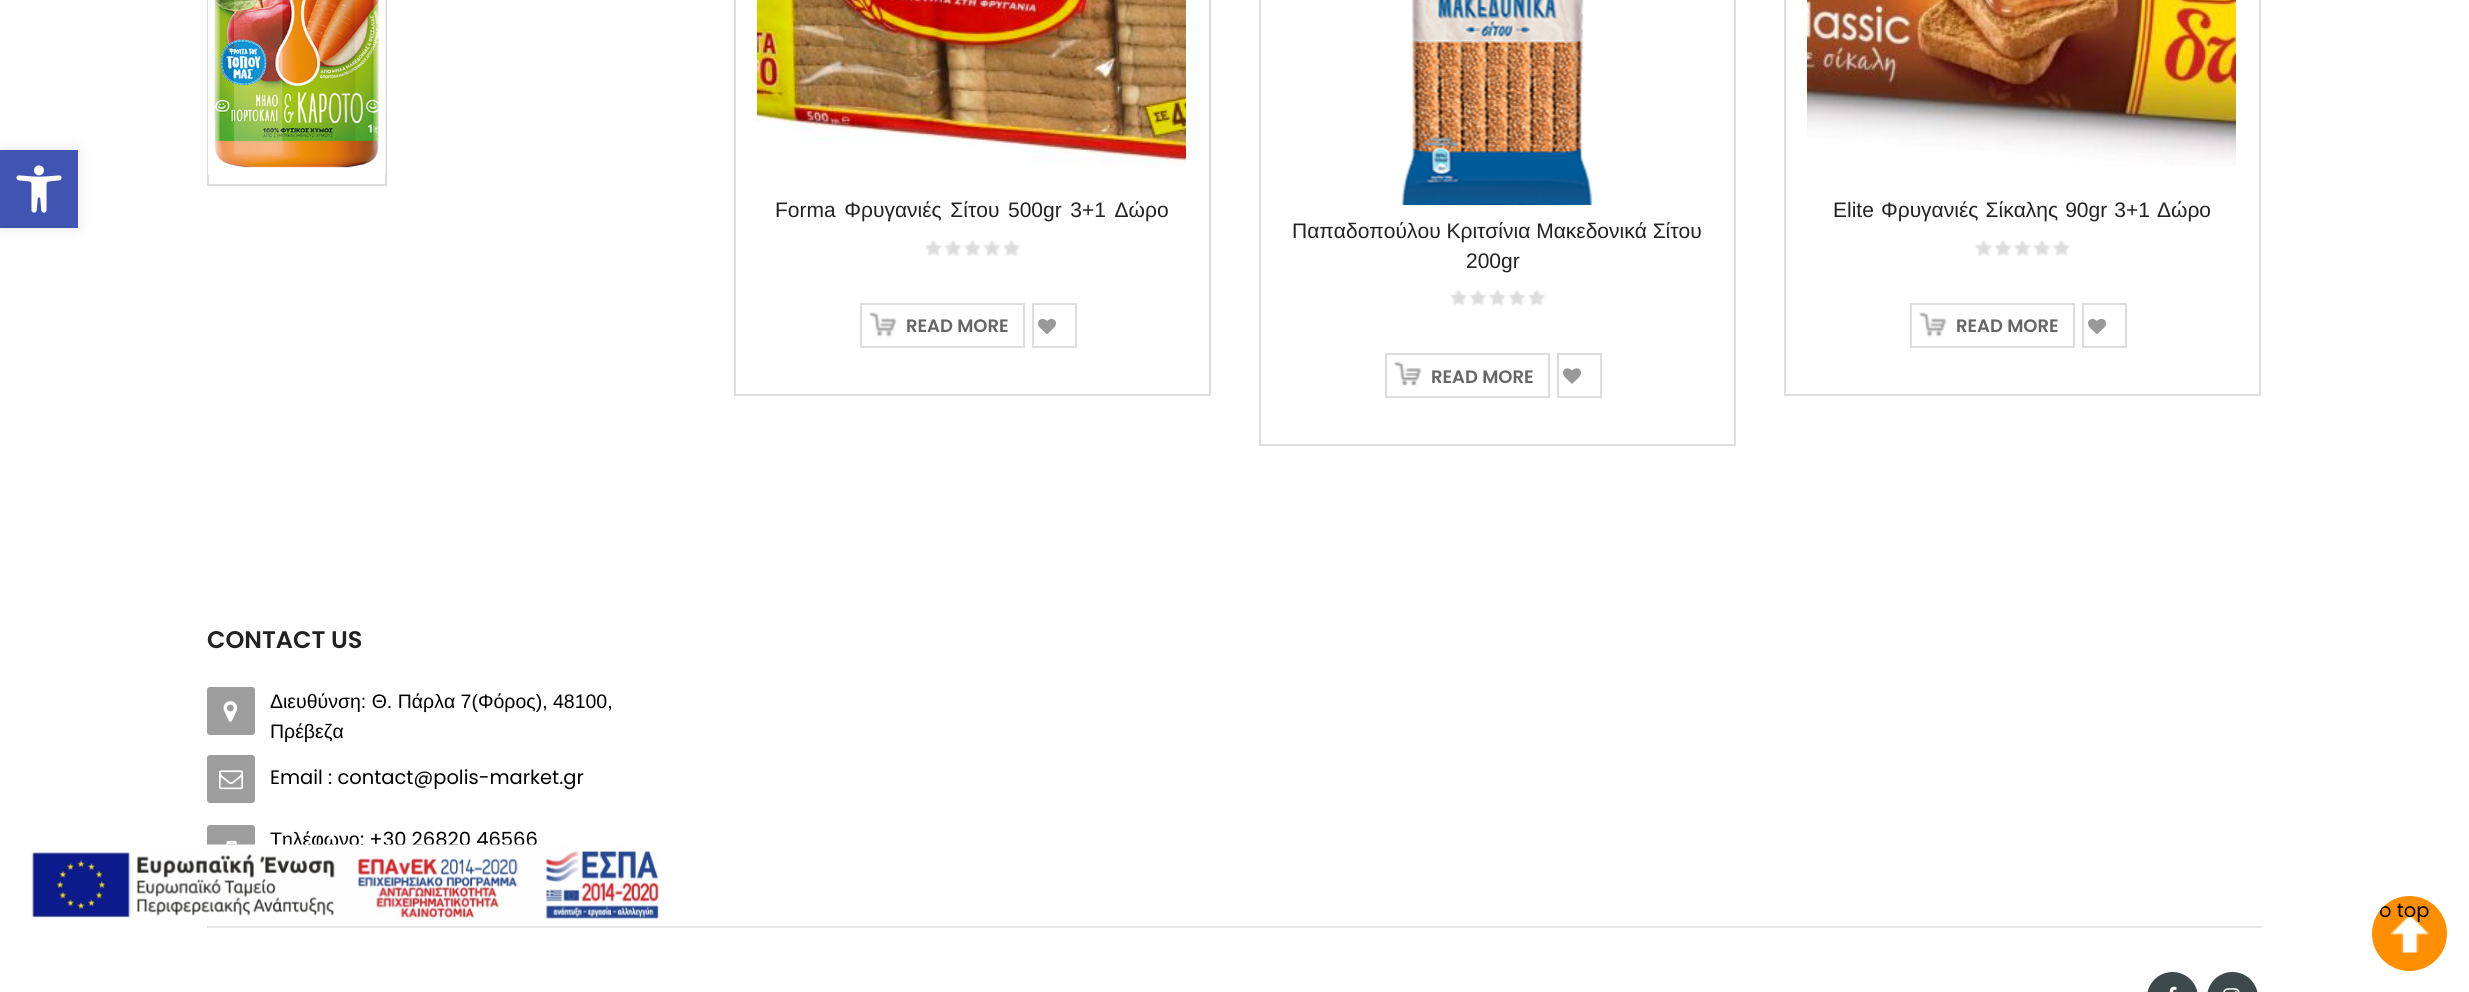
#include <cairo/cairo.h>
#include <math.h>
#include <stddef.h>

static cairo_t *cr;

static void rgb(unsigned color)
{
	cairo_set_source_rgb(cr, (color >> 16) / 255.0, (color >> 8 & 255) / 255.0, (color & 255) / 255.0);
}

static void tracked(double x, double y, const char *s, double letter, double word)
{
	cairo_move_to(cr, x, y);
	while (*s) {
		char ch[5] = {0};
		int n = 0;
		do ch[n++] = *s++; while ((*s & 0xC0) == 0x80);
		cairo_show_text(cr, ch);
		cairo_rel_move_to(cr, letter + word * (*ch == ' '), 0);
	}
}

static void rrect(double x, double y, double w, double h, double r)
{
	cairo_new_sub_path(cr);
	cairo_arc(cr, x + w - r, y + h - r, r, 0, M_PI / 2);
	cairo_arc(cr, x + r, y + h - r, r, M_PI / 2, M_PI);
	cairo_arc(cr, x + r, y + r, r, M_PI, 1.5 * M_PI);
	cairo_arc(cr, x + w - r, y + r, r, 1.5 * M_PI, 2 * M_PI);
	cairo_close_path(cr);
}

static void soft_shadow(double x, double y, double w, double h, double r, double blur, double alpha)
{
	cairo_push_group_with_content(cr, CAIRO_CONTENT_ALPHA);
	cairo_set_operator(cr, CAIRO_OPERATOR_SOURCE);
	for (int i = 15; i >= -15 && fmin(w, h) + blur * i / 3 > 0; i -= 2) {
		double e = blur * i / 6;
		cairo_set_source_rgba(cr, 0, 0, 0, alpha * erfc((i - 1) / 8.5) / 2);
		rrect(x - e, y - e, w + 2 * e, h + 2 * e, fmax(0, fmin(r + e + blur * .6, fmin(w, h) / 2 + e)));
		cairo_fill(cr);
	}
	cairo_pattern_t *soft = cairo_pop_group(cr);
	cairo_mask(cr, soft);
	cairo_pattern_destroy(soft);
}

static void image(const char *path, double x, double y, double w, double h)
{
	cairo_surface_t *image = cairo_image_surface_create_from_png(path);
	cairo_save(cr);
	cairo_set_source_surface(cr, image, x, y);
	cairo_rectangle(cr, x, y, w, h);
	cairo_fill(cr);
	cairo_restore(cr);
	cairo_surface_destroy(image);
}

int main(void) {
	cairo_surface_t *surface = cairo_image_surface_create(CAIRO_FORMAT_RGB24, 2469, 992);
	cr = cairo_create(surface);
	cairo_font_options_t *options = cairo_font_options_create();
	cairo_font_options_set_hint_metrics(options, CAIRO_HINT_METRICS_OFF);
	cairo_font_options_set_hint_style(options, CAIRO_HINT_STYLE_NONE);
	cairo_set_font_options(cr, options);
	cairo_set_miter_limit(cr, 4);
	rgb(0xffffff);
	cairo_paint(cr);
	rgb(0x000000);
	soft_shadow(0, 150, 78, 78, 0, 7.5, 0.1);
	rgb(0x4054b2);
	cairo_rectangle(cr, 0, 150, 78, 78);
	cairo_fill(cr);
	image("img/1.png", 16, 165, 46, 48);
	cairo_rectangle(cr, 208, -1, 178, 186);
	rgb(0xdddddd);
	cairo_stroke(cr);
	image("img/2.png", 208, 0, 178, 175);
	cairo_rectangle(cr, 735, -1, 475, 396);
	cairo_stroke(cr);
	image("img/3.png", 757, 0, 429, 166);
	image("img/4.png", 925, 240, 95, 17);
	cairo_rectangle(cr, 861, 304, 163, 43);
	cairo_stroke(cr);
	image("img/5.png", 869, 312, 28, 25);
	cairo_rectangle(cr, 1033, 304, 43, 43);
	cairo_stroke(cr);
	image("img/6.png", 1038, 318, 18, 17);
	cairo_rectangle(cr, 1260, -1, 475, 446);
	cairo_stroke(cr);
	image("img/7.png", 1401, 0, 192, 205);
	image("img/8.png", 1450, 289, 96, 17);
	cairo_rectangle(cr, 1386, 354, 163, 43);
	cairo_stroke(cr);
	image("img/9.png", 1394, 362, 28, 24);
	cairo_rectangle(cr, 1558, 354, 43, 43);
	cairo_stroke(cr);
	image("img/10.png", 1563, 368, 18, 16);
	cairo_rectangle(cr, 1785, -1, 475, 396);
	cairo_stroke(cr);
	image("img/11.png", 1807, 0, 429, 166);
	image("img/4.png", 1975, 240, 95, 17);
	cairo_rectangle(cr, 1911, 304, 163, 43);
	cairo_stroke(cr);
	image("img/5.png", 1919, 312, 28, 25);
	cairo_rectangle(cr, 2083, 304, 43, 43);
	cairo_stroke(cr);
	image("img/6.png", 2088, 318, 18, 17);
	rgb(0x9d9d9d);
	rrect(207, 687, 48, 48, 3);
	cairo_fill(cr);
	image("img/12.png", 223, 701, 15, 21);
	rrect(207, 755, 48, 48, 3);
	cairo_fill(cr);
	image("img/13.png", 219, 770, 24, 20);
	rrect(207, 825, 48, 48, 3);
	cairo_fill(cr);
	image("img/14.png", 226, 840, 11, 5);
	rgb(0xe6e7eb);
	cairo_rectangle(cr, 207, 926, 2055, 2);
	cairo_fill(cr);
	rgb(0x3d494a);
	rrect(2147, 972, 51, 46, 25.5);
	cairo_fill(cr);
	image("img/16.png", 2169, 986, 8, 6);
	rrect(2207, 972, 51, 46, 25.5);
	cairo_fill(cr);
	image("img/17.png", 2223, 988, 17, 4);
	rgb(0xff8f00);
	cairo_arc(cr, 2409.5, 933.5, 37.5, 0, 2 * M_PI);
	cairo_fill(cr);
	image("img/18.png", 2391, 915, 38, 38);
	cairo_select_font_face(cr, "Liberation Sans", CAIRO_FONT_SLANT_NORMAL, CAIRO_FONT_WEIGHT_NORMAL);
	cairo_set_font_size(cr, 21);
	rgb(0x222222);
	tracked(775, 217, "Forma Φρυγανιές Σίτου 500gr 3+1 Δώρο", 0, 2.75);
	cairo_select_font_face(cr, "Poppins SemiBold", CAIRO_FONT_SLANT_NORMAL, CAIRO_FONT_WEIGHT_NORMAL);
	cairo_set_font_size(cr, 18);
	rgb(0x666666);
	cairo_move_to(cr, 906, 332);
	cairo_show_text(cr, "READ MORE");
	cairo_select_font_face(cr, "Liberation Sans", CAIRO_FONT_SLANT_NORMAL, CAIRO_FONT_WEIGHT_NORMAL);
	cairo_set_font_size(cr, 21);
	rgb(0x222222);
	cairo_move_to(cr, 1292, 238);
	cairo_show_text(cr, "Παπαδοπούλου Κριτσίνια Μακεδονικά Σίτου");
	cairo_move_to(cr, 1466, 268);
	cairo_show_text(cr, "200gr");
	cairo_select_font_face(cr, "Poppins SemiBold", CAIRO_FONT_SLANT_NORMAL, CAIRO_FONT_WEIGHT_NORMAL);
	cairo_set_font_size(cr, 18);
	rgb(0x666666);
	cairo_move_to(cr, 1431, 383);
	cairo_show_text(cr, "READ MORE");
	cairo_select_font_face(cr, "Liberation Sans", CAIRO_FONT_SLANT_NORMAL, CAIRO_FONT_WEIGHT_NORMAL);
	cairo_set_font_size(cr, 21);
	rgb(0x222222);
	tracked(1833, 217, "Elite Φρυγανιές Σίκαλης 90gr 3+1 Δώρο", 0, 1.25);
	cairo_select_font_face(cr, "Poppins SemiBold", CAIRO_FONT_SLANT_NORMAL, CAIRO_FONT_WEIGHT_NORMAL);
	cairo_set_font_size(cr, 18);
	rgb(0x666666);
	cairo_move_to(cr, 1956, 332);
	cairo_show_text(cr, "READ MORE");
	cairo_set_font_size(cr, 24);
	rgb(0x222222);
	cairo_move_to(cr, 207, 648);
	cairo_show_text(cr, "CONTACT US");
	cairo_select_font_face(cr, "Liberation Sans", CAIRO_FONT_SLANT_NORMAL, CAIRO_FONT_WEIGHT_NORMAL);
	cairo_set_font_size(cr, 19.5);
	rgb(0x000000);
	cairo_move_to(cr, 270, 708);
	cairo_show_text(cr, "Διευθύνση: Θ. Πάρλα 7(Φόρος), 48100,");
	cairo_move_to(cr, 270, 738);
	cairo_show_text(cr, "Πρέβεζα");
	cairo_select_font_face(cr, "Poppins", CAIRO_FONT_SLANT_NORMAL, CAIRO_FONT_WEIGHT_NORMAL);
	cairo_move_to(cr, 270, 784);
	cairo_show_text(cr, "Email : contact@polis-market.gr");
	cairo_select_font_face(cr, "Liberation Sans", CAIRO_FONT_SLANT_NORMAL, CAIRO_FONT_WEIGHT_NORMAL);
	cairo_move_to(cr, 270, 846);
	cairo_show_text(cr, "Τηλέφωνο");
	cairo_select_font_face(cr, "Poppins", CAIRO_FONT_SLANT_NORMAL, CAIRO_FONT_WEIGHT_NORMAL);
	cairo_move_to(cr, 360, 846);
	cairo_show_text(cr, ": +30 26820 46566");
	image("img/15.png", 31, 844, 629, 76);
	cairo_save(cr);
	rrect(2372, 896, 75, 75, 37.5);
	cairo_clip(cr);
	cairo_move_to(cr, 2379, 917);
	cairo_show_text(cr, "o top");
	cairo_restore(cr);
	cairo_surface_write_to_png(surface, "page.png");
	cairo_font_options_destroy(options);
	cairo_destroy(cr);
	cairo_surface_destroy(surface);
	return 0;
}
